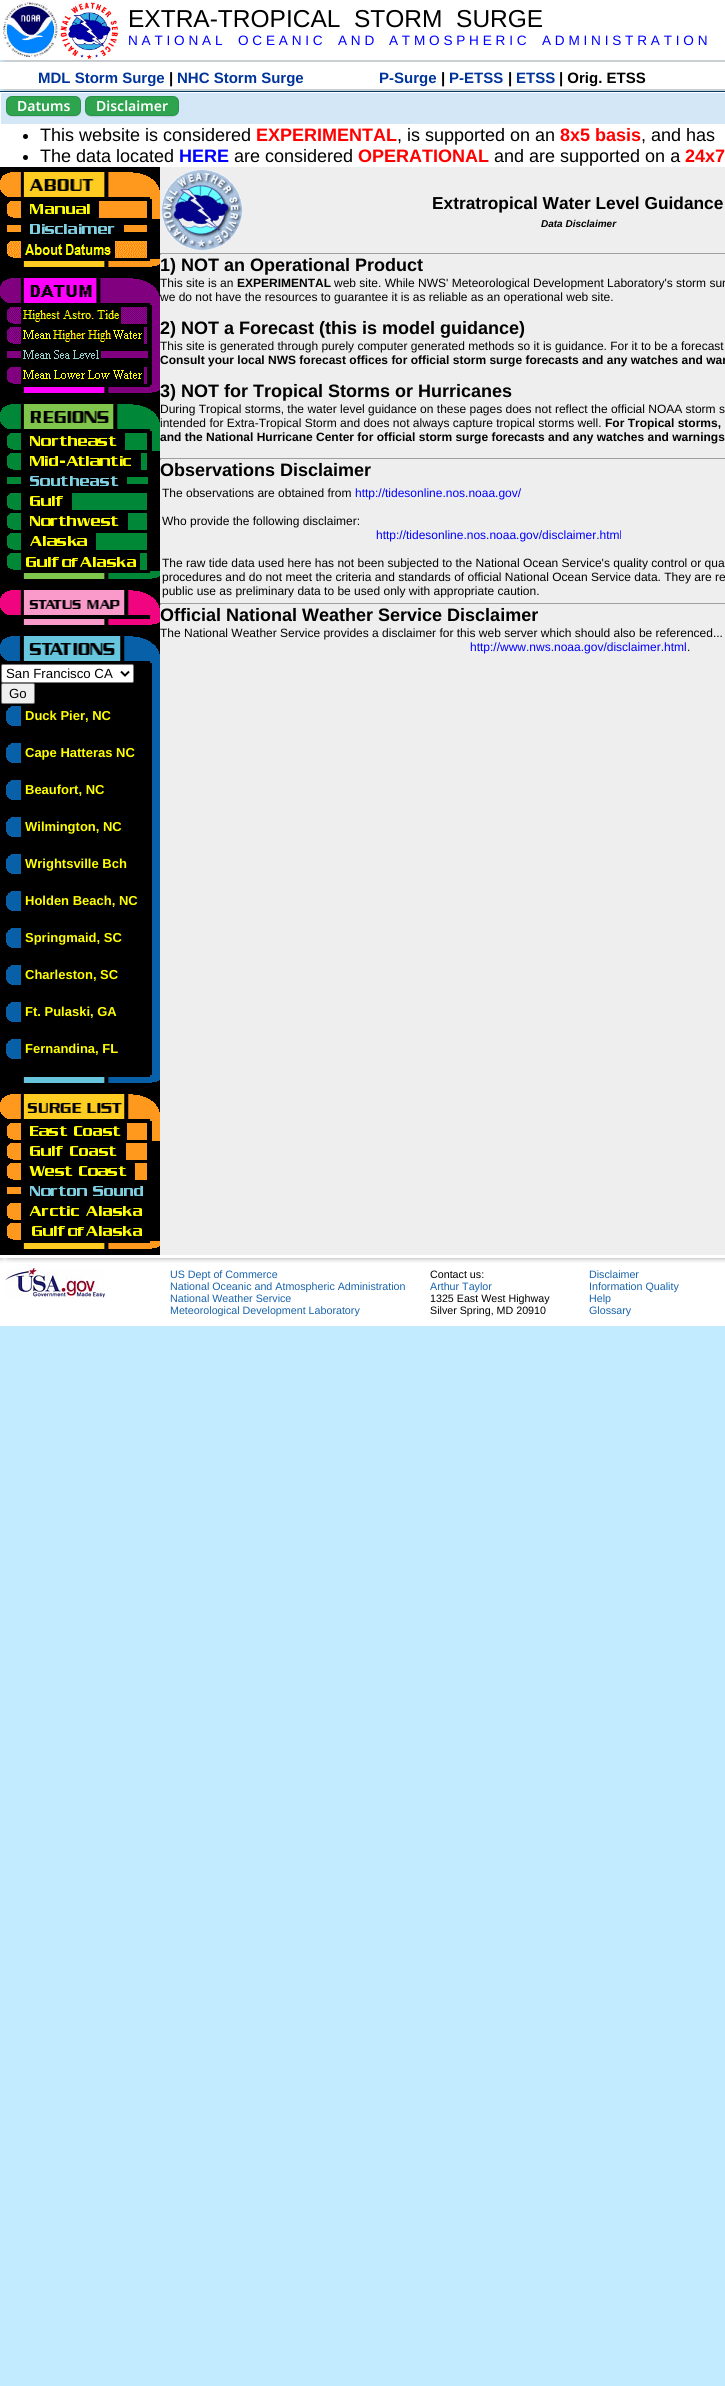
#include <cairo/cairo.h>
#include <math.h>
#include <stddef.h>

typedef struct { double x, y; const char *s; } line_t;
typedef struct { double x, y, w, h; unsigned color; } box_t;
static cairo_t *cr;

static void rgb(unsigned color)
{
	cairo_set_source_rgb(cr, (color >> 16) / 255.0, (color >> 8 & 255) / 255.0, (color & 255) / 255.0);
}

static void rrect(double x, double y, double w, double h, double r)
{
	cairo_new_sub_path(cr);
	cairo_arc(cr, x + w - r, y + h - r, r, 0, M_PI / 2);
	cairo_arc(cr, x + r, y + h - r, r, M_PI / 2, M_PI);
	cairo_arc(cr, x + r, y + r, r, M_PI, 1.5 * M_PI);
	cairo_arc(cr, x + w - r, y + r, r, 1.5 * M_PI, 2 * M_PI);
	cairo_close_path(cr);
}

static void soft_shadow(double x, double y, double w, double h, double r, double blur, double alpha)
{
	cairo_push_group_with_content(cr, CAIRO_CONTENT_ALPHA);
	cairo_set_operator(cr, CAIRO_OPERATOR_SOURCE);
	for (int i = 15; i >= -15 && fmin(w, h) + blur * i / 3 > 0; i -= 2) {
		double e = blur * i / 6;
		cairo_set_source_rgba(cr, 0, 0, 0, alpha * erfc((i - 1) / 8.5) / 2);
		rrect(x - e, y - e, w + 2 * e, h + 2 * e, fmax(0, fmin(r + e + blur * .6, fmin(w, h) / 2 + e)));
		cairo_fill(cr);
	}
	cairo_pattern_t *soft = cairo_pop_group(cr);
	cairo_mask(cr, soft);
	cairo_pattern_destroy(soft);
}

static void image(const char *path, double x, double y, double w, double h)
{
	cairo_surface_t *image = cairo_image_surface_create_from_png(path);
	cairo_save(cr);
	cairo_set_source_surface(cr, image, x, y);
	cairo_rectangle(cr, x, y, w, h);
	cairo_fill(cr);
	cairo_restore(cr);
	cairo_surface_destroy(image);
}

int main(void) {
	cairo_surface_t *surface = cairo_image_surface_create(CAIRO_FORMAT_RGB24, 725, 2386);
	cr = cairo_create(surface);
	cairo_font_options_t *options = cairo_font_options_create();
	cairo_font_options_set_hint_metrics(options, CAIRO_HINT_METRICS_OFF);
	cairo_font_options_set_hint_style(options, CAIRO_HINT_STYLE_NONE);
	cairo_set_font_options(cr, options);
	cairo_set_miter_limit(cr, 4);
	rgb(0xc3ebff);
	cairo_paint(cr);
	rgb(0xcccccc);
	soft_shadow(3, 10, 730, 54, 0, 2.5, 1);
	rgb(0xffffff);
	cairo_rectangle(cr, 0, 0, 725, 60);
	cairo_fill(cr);
	image("img/1.png", 3, 2, 55, 56);
	image("img/2.png", 60, 2, 58, 58);
	rgb(0xcccccc);
	soft_shadow(3, 72, 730, 21, 0, 2.5, 1);
	rgb(0xffffff);
	cairo_rectangle(cr, 0, 62, 725, 27);
	cairo_fill(cr);
	rgb(0x033e6b);
	cairo_rectangle(cr, 0, 91, 725, 1);
	cairo_fill(cr);
	rgb(0xd3e7f7);
	cairo_rectangle(cr, 0.5, 92.5, 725, 32);
	cairo_fill_preserve(cr);
	rgb(0xffffff);
	cairo_set_line_width(cr, 1);
	cairo_stroke(cr);
	rgb(0xc1d3e2);
	cairo_new_path(cr);
	cairo_move_to(cr, 6, 110);
	cairo_curve_to(cr, 6, 119, 16, 117, 22, 117);
	cairo_line_to(cr, 64, 117);
	cairo_curve_to(cr, 71, 117, 81, 119, 81, 110);
	cairo_curve_to(cr, 81, 113, 78, 116, 75, 116);
	cairo_line_to(cr, 12, 116);
	cairo_curve_to(cr, 9, 116, 6, 113, 6, 110);
	cairo_close_path(cr);
	cairo_fill(cr);
	rgb(0x2ea44f);
	rrect(6, 96, 75, 20, 6);
	cairo_fill(cr);
	rrect(6.5, 96.5, 74, 19, 5.5);
	cairo_set_source_rgba(cr, 0.106, 0.122, 0.137, 0.15);
	cairo_stroke(cr);
	rgb(0xc1d3e2);
	cairo_new_path(cr);
	cairo_move_to(cr, 85, 110);
	cairo_curve_to(cr, 85, 120, 98, 117, 105, 117);
	cairo_line_to(cr, 159, 117);
	cairo_curve_to(cr, 166, 117, 179, 120, 179, 110);
	cairo_curve_to(cr, 179, 113, 176, 116, 173, 116);
	cairo_line_to(cr, 91, 116);
	cairo_curve_to(cr, 88, 116, 85, 113, 85, 110);
	cairo_close_path(cr);
	cairo_fill(cr);
	rgb(0x2ea44f);
	rrect(85, 96, 94, 20, 6);
	cairo_fill(cr);
	rrect(85.5, 96.5, 93, 19, 5.5);
	cairo_set_source_rgba(cr, 0.106, 0.122, 0.137, 0.15);
	cairo_stroke(cr);
	rgb(0xffffff);
	cairo_rectangle(cr, 0, 125, 725, 1201);
	cairo_fill(cr);
	rgb(0x000000);
	cairo_arc(cr, 25.5, 136.5, 2.5, 0, 2 * M_PI);
	cairo_fill(cr);
	cairo_arc(cr, 25.5, 157.5, 2.5, 0, 2 * M_PI);
	cairo_fill(cr);
	rgb(0xeeeeee);
	cairo_rectangle(cr, 160, 167, 565, 1088);
	cairo_fill(cr);
	image("img/3.png", 162, 170, 80, 80);
	{
		static const box_t items[] = {
			{160, 253, 565, 1, 0x9f9f9f},
			{160, 253, 1, 2, 0x9f9f9f},
			{160, 458, 565, 1, 0x9f9f9f},
			{160, 458, 1, 2, 0x9f9f9f},
			{160, 603, 565, 1, 0x9f9f9f},
			{160, 603, 1, 2, 0x9f9f9f},
			{0, 167, 160, 5, 0x000000},
		};
		for (size_t i = 0; i < sizeof items / sizeof *items; i++) {
			rgb(items[i].color);
			cairo_rectangle(cr, items[i].x, items[i].y, items[i].w, items[i].h);
			cairo_fill(cr);
		}
	}
	image("img/4.png", 0, 172, 160, 27);
	cairo_rectangle(cr, 0, 199, 152, 20);
	cairo_fill(cr);
	image("img/5.png", 7, 201, 140, 17);
	rgb(0xfe991e);
	cairo_rectangle(cr, 152, 199, 8, 20);
	cairo_fill(cr);
	rgb(0x000000);
	cairo_rectangle(cr, 0, 219, 160, 59);
	cairo_fill(cr);
	image("img/6.png", 7, 224, 140, 10);
	image("img/7.png", 7, 241, 140, 17);
	image("img/8.png", 23, 259, 137, 8);
	image("img/9.png", 0, 278, 160, 27);
	cairo_rectangle(cr, 0, 305, 152, 80);
	cairo_fill(cr);
	image("img/10.png", 7, 307, 140, 17);
	rgb(0x800080);
	cairo_rectangle(cr, 152, 305, 8, 80);
	cairo_fill(cr);
	image("img/11.png", 7, 327, 140, 17);
	image("img/12.png", 7, 350, 141, 9);
	image("img/13.png", 7, 367, 140, 17);
	rgb(0x000000);
	cairo_rectangle(cr, 0, 385, 160, 19);
	cairo_fill(cr);
	image("img/14.png", 23, 385, 137, 8);
	image("img/15.png", 0, 404, 160, 27);
	cairo_rectangle(cr, 0, 431, 152, 20);
	cairo_fill(cr);
	image("img/16.png", 7, 433, 140, 17);
	rgb(0x008737);
	cairo_rectangle(cr, 152, 431, 8, 20);
	cairo_fill(cr);
	rgb(0x000000);
	cairo_rectangle(cr, 0, 451, 160, 139);
	cairo_fill(cr);
	image("img/17.png", 7, 453, 140, 17);
	image("img/18.png", 7, 476, 141, 10);
	image("img/19.png", 7, 493, 140, 17);
	image("img/20.png", 7, 513, 140, 17);
	image("img/21.png", 7, 533, 140, 17);
	image("img/22.png", 7, 553, 140, 17);
	image("img/23.png", 23, 571, 137, 8);
	image("img/24.png", 0, 590, 160, 27);
	cairo_rectangle(cr, 0, 617, 160, 19);
	cairo_fill(cr);
	image("img/25.png", 23, 617, 137, 8);
	image("img/26.png", 0, 636, 160, 27);
	cairo_rectangle(cr, 0, 663, 152, 412);
	cairo_fill(cr);
	rgb(0xffffff);
	rrect(1.5, 664.5, 132, 18, 1.5);
	cairo_fill_preserve(cr);
	rgb(0x767676);
	cairo_stroke(cr);
	cairo_new_path(cr);
	cairo_move_to(cr, 121, 671.5);
	cairo_line_to(cr, 125, 675.5);
	cairo_line_to(cr, 129, 671.5);
	rgb(0x000000);
	cairo_set_line_width(cr, 2);
	cairo_stroke(cr);
	rgb(0xefefef);
	rrect(1.5, 683.5, 33, 20, 1.5);
	cairo_fill_preserve(cr);
	rgb(0x767676);
	cairo_set_line_width(cr, 1);
	cairo_stroke(cr);
	image("img/27.png", 6, 706, 15, 20);
	image("img/27.png", 6, 743, 15, 20);
	image("img/27.png", 6, 780, 15, 20);
	image("img/27.png", 6, 817, 15, 20);
	image("img/27.png", 6, 854, 15, 20);
	image("img/27.png", 6, 891, 15, 20);
	image("img/27.png", 6, 928, 15, 20);
	image("img/27.png", 6, 965, 15, 20);
	image("img/27.png", 6, 1002, 15, 20);
	image("img/27.png", 6, 1039, 15, 20);
	rgb(0x0860a8);
	cairo_rectangle(cr, 152, 663, 8, 412);
	cairo_fill(cr);
	rgb(0x000000);
	cairo_rectangle(cr, 0, 1075, 160, 19);
	cairo_fill(cr);
	image("img/28.png", 23, 1075, 137, 8);
	image("img/29.png", 0, 1094, 160, 27);
	cairo_rectangle(cr, 0, 1121, 152, 20);
	cairo_fill(cr);
	image("img/30.png", 7, 1123, 140, 17);
	rgb(0xfe991e);
	cairo_rectangle(cr, 152, 1121, 8, 20);
	cairo_fill(cr);
	rgb(0x000000);
	cairo_rectangle(cr, 0, 1141, 160, 114);
	cairo_fill(cr);
	image("img/31.png", 7, 1143, 140, 17);
	image("img/32.png", 7, 1163, 140, 17);
	image("img/33.png", 7, 1186, 136, 10);
	image("img/34.png", 7, 1203, 135, 17);
	image("img/35.png", 7, 1223, 135, 17);
	image("img/8.png", 23, 1241, 137, 8);
	image("img/36.png", 0, 1258, 725, 5);
	image("img/37.png", 5, 1268, 100, 30);
	cairo_select_font_face(cr, "Liberation Sans", CAIRO_FONT_SLANT_NORMAL, CAIRO_FONT_WEIGHT_NORMAL);
	cairo_set_font_size(cr, 24.5);
	cairo_move_to(cr, 128, 27);
	cairo_show_text(cr, "EXTRA-TROPICAL  STORM  SURGE");
	cairo_set_font_size(cr, 13.6);
	rgb(0x0000ff);
	{
		static const line_t items[] = {
			{128, 45, "N A T I O N A L"},
			{238, 45, "O C E A N I C"},
			{338, 45, "A N D"},
			{389, 45, "A T M O S P H E R I C"},
			{542, 45, "A D M I N I S T R A T I O N"},
		};
		for (size_t i = 0; i < sizeof items / sizeof *items; i++) {
			cairo_move_to(cr, items[i].x, items[i].y);
			cairo_show_text(cr, items[i].s);
		}
	}
	cairo_select_font_face(cr, "Liberation Sans", CAIRO_FONT_SLANT_NORMAL, CAIRO_FONT_WEIGHT_BOLD);
	cairo_set_font_size(cr, 15);
	rgb(0x003399);
	cairo_move_to(cr, 38, 83);
	cairo_show_text(cr, "MDL Storm Surge");
	rgb(0x000000);
	cairo_move_to(cr, 169, 83);
	cairo_show_text(cr, "|");
	rgb(0x003399);
	cairo_move_to(cr, 177, 83);
	cairo_show_text(cr, "NHC Storm Surge");
	cairo_move_to(cr, 379, 83);
	cairo_show_text(cr, "P-Surge");
	rgb(0x000000);
	cairo_move_to(cr, 441, 83);
	cairo_show_text(cr, "|");
	rgb(0x003399);
	cairo_move_to(cr, 449, 83);
	cairo_show_text(cr, "P-ETSS");
	rgb(0x000000);
	cairo_move_to(cr, 508, 83);
	cairo_show_text(cr, "|");
	rgb(0x003399);
	cairo_move_to(cr, 516, 83);
	cairo_show_text(cr, "ETSS");
	rgb(0x000000);
	cairo_move_to(cr, 559, 83);
	cairo_show_text(cr, "| Orig. ETSS");
	cairo_select_font_face(cr, "Noto Sans SemiBold", CAIRO_FONT_SLANT_NORMAL, CAIRO_FONT_WEIGHT_NORMAL);
	cairo_set_font_size(cr, 14);
	rgb(0xffffff);
	cairo_move_to(cr, 17, 111);
	cairo_show_text(cr, "Datums");
	cairo_move_to(cr, 96, 111);
	cairo_show_text(cr, "Disclaimer");
	cairo_select_font_face(cr, "Liberation Sans", CAIRO_FONT_SLANT_NORMAL, CAIRO_FONT_WEIGHT_NORMAL);
	cairo_set_font_size(cr, 18);
	rgb(0x000000);
	cairo_move_to(cr, 40, 141);
	cairo_show_text(cr, "This website is considered");
	cairo_select_font_face(cr, "Liberation Sans", CAIRO_FONT_SLANT_NORMAL, CAIRO_FONT_WEIGHT_BOLD);
	rgb(0xff0000);
	cairo_move_to(cr, 256, 141);
	cairo_show_text(cr, "EXPERIMENTAL");
	cairo_select_font_face(cr, "Liberation Sans", CAIRO_FONT_SLANT_NORMAL, CAIRO_FONT_WEIGHT_NORMAL);
	rgb(0x000000);
	cairo_move_to(cr, 397, 141);
	cairo_show_text(cr, ", is supported on an");
	cairo_select_font_face(cr, "Liberation Sans", CAIRO_FONT_SLANT_NORMAL, CAIRO_FONT_WEIGHT_BOLD);
	rgb(0xff0000);
	cairo_move_to(cr, 560, 141);
	cairo_show_text(cr, "8x5 basis");
	cairo_select_font_face(cr, "Liberation Sans", CAIRO_FONT_SLANT_NORMAL, CAIRO_FONT_WEIGHT_NORMAL);
	rgb(0x000000);
	cairo_move_to(cr, 641, 141);
	cairo_show_text(cr, ", and has");
	cairo_move_to(cr, 40, 162);
	cairo_show_text(cr, "The data located");
	cairo_select_font_face(cr, "Liberation Sans", CAIRO_FONT_SLANT_NORMAL, CAIRO_FONT_WEIGHT_BOLD);
	rgb(0x0000ff);
	cairo_move_to(cr, 179, 162);
	cairo_show_text(cr, "HERE");
	cairo_select_font_face(cr, "Liberation Sans", CAIRO_FONT_SLANT_NORMAL, CAIRO_FONT_WEIGHT_NORMAL);
	rgb(0x000000);
	cairo_move_to(cr, 234, 162);
	cairo_show_text(cr, "are considered");
	cairo_select_font_face(cr, "Liberation Sans", CAIRO_FONT_SLANT_NORMAL, CAIRO_FONT_WEIGHT_BOLD);
	rgb(0xff0000);
	cairo_move_to(cr, 358, 162);
	cairo_show_text(cr, "OPERATIONAL");
	cairo_select_font_face(cr, "Liberation Sans", CAIRO_FONT_SLANT_NORMAL, CAIRO_FONT_WEIGHT_NORMAL);
	rgb(0x000000);
	cairo_move_to(cr, 494, 162);
	cairo_show_text(cr, "and are supported on a");
	cairo_select_font_face(cr, "Liberation Sans", CAIRO_FONT_SLANT_NORMAL, CAIRO_FONT_WEIGHT_BOLD);
	rgb(0xff0000);
	cairo_move_to(cr, 685, 162);
	cairo_show_text(cr, "24x7");
	cairo_set_font_size(cr, 17.3);
	rgb(0x000000);
	cairo_move_to(cr, 432, 209);
	cairo_show_text(cr, "Extratropical Water Level Guidance");
	cairo_select_font_face(cr, "Liberation Sans", CAIRO_FONT_SLANT_ITALIC, CAIRO_FONT_WEIGHT_BOLD);
	cairo_set_font_size(cr, 10);
	cairo_move_to(cr, 541, 227);
	cairo_show_text(cr, "Data Disclaimer");
	cairo_select_font_face(cr, "Liberation Sans", CAIRO_FONT_SLANT_NORMAL, CAIRO_FONT_WEIGHT_BOLD);
	cairo_set_font_size(cr, 18);
	cairo_move_to(cr, 160, 271);
	cairo_show_text(cr, "1) NOT an Operational Product");
	cairo_select_font_face(cr, "Liberation Sans", CAIRO_FONT_SLANT_NORMAL, CAIRO_FONT_WEIGHT_NORMAL);
	cairo_set_font_size(cr, 12);
	cairo_move_to(cr, 160, 287);
	cairo_show_text(cr, "This site is an");
	cairo_select_font_face(cr, "Liberation Sans", CAIRO_FONT_SLANT_NORMAL, CAIRO_FONT_WEIGHT_BOLD);
	cairo_move_to(cr, 237, 287);
	cairo_show_text(cr, "EXPERIMENTAL");
	cairo_select_font_face(cr, "Liberation Sans", CAIRO_FONT_SLANT_NORMAL, CAIRO_FONT_WEIGHT_NORMAL);
	cairo_move_to(cr, 334, 287);
	cairo_show_text(cr, "web site. While NWS' Meteorological Development Laboratory's storm sur");
	cairo_move_to(cr, 160, 301);
	cairo_show_text(cr, "we do not have the resources to guarantee it is as reliable as an operational web site.");
	cairo_select_font_face(cr, "Liberation Sans", CAIRO_FONT_SLANT_NORMAL, CAIRO_FONT_WEIGHT_BOLD);
	cairo_set_font_size(cr, 18);
	cairo_move_to(cr, 160, 334);
	cairo_show_text(cr, "2) NOT a Forecast (this is model guidance)");
	cairo_select_font_face(cr, "Liberation Sans", CAIRO_FONT_SLANT_NORMAL, CAIRO_FONT_WEIGHT_NORMAL);
	cairo_set_font_size(cr, 12);
	cairo_move_to(cr, 160, 350);
	cairo_show_text(cr, "This site is generated through purely computer generated methods so it is guidance. For it to be a forecast");
	cairo_select_font_face(cr, "Liberation Sans", CAIRO_FONT_SLANT_NORMAL, CAIRO_FONT_WEIGHT_BOLD);
	cairo_move_to(cr, 160, 364);
	cairo_show_text(cr, "Consult your local NWS forecast offices for official storm surge forecasts and any watches and war");
	cairo_set_font_size(cr, 18);
	cairo_move_to(cr, 160, 397);
	cairo_show_text(cr, "3) NOT for Tropical Storms or Hurricanes");
	cairo_select_font_face(cr, "Liberation Sans", CAIRO_FONT_SLANT_NORMAL, CAIRO_FONT_WEIGHT_NORMAL);
	cairo_set_font_size(cr, 12);
	cairo_move_to(cr, 160, 413);
	cairo_show_text(cr, "During Tropical storms, the water level guidance on these pages does not reflect the official NOAA storm s");
	cairo_move_to(cr, 160, 427);
	cairo_show_text(cr, "intended for Extra-Tropical Storm and does not always capture tropical storms well.");
	cairo_select_font_face(cr, "Liberation Sans", CAIRO_FONT_SLANT_NORMAL, CAIRO_FONT_WEIGHT_BOLD);
	cairo_move_to(cr, 605, 427);
	cairo_show_text(cr, "For Tropical storms,");
	cairo_move_to(cr, 160, 441);
	cairo_show_text(cr, "and the National Hurricane Center for official storm surge forecasts and any watches and warnings");
	cairo_set_font_size(cr, 18);
	cairo_move_to(cr, 160, 476);
	cairo_show_text(cr, "Observations Disclaimer");
	cairo_select_font_face(cr, "Liberation Sans", CAIRO_FONT_SLANT_NORMAL, CAIRO_FONT_WEIGHT_NORMAL);
	cairo_set_font_size(cr, 12);
	cairo_move_to(cr, 162, 497);
	cairo_show_text(cr, "The observations are obtained from");
	rgb(0x0000ff);
	cairo_move_to(cr, 355, 497);
	cairo_show_text(cr, "http://tidesonline.nos.noaa.gov/");
	rgb(0x000000);
	cairo_move_to(cr, 162, 525);
	cairo_show_text(cr, "Who provide the following disclaimer:");
	rgb(0x0000ff);
	cairo_move_to(cr, 376, 539);
	cairo_show_text(cr, "http://tidesonline.nos.noaa.gov/disclaimer.html");
	rgb(0x000000);
	{
		static const line_t items[] = {
			{162, 567, "The raw tide data used here has not been subjected to the National Ocean Service's quality control or qua"},
			{162, 581, "procedures and do not meet the criteria and standards of official National Ocean Service data. They are re"},
			{162, 595, "public use as preliminary data to be used only with appropriate caution."},
		};
		for (size_t i = 0; i < sizeof items / sizeof *items; i++) {
			cairo_move_to(cr, items[i].x, items[i].y);
			cairo_show_text(cr, items[i].s);
		}
	}
	cairo_select_font_face(cr, "Liberation Sans", CAIRO_FONT_SLANT_NORMAL, CAIRO_FONT_WEIGHT_BOLD);
	cairo_set_font_size(cr, 18);
	cairo_move_to(cr, 160, 621);
	cairo_show_text(cr, "Official National Weather Service Disclaimer");
	cairo_select_font_face(cr, "Liberation Sans", CAIRO_FONT_SLANT_NORMAL, CAIRO_FONT_WEIGHT_NORMAL);
	cairo_set_font_size(cr, 12);
	cairo_move_to(cr, 160, 637);
	cairo_show_text(cr, "The National Weather Service provides a disclaimer for this web server which should also be referenced...");
	rgb(0x0000ff);
	cairo_move_to(cr, 470, 651);
	cairo_show_text(cr, "http://www.nws.noaa.gov/disclaimer.html");
	rgb(0x000000);
	cairo_move_to(cr, 687, 651);
	cairo_show_text(cr, ".");
	cairo_set_font_size(cr, 13.25);
	cairo_move_to(cr, 6, 678);
	cairo_show_text(cr, "San Francisco CA");
	cairo_move_to(cr, 9, 698);
	cairo_show_text(cr, "Go");
	cairo_select_font_face(cr, "Liberation Sans", CAIRO_FONT_SLANT_NORMAL, CAIRO_FONT_WEIGHT_BOLD);
	cairo_set_font_size(cr, 13);
	rgb(0xffff00);
	{
		static const line_t items[] = {
			{25, 720, "Duck Pier, NC"},
			{25, 757, "Cape Hatteras NC"},
			{25, 794, "Beaufort, NC"},
			{25, 831, "Wilmington, NC"},
			{25, 868, "Wrightsville Bch"},
			{25, 905, "Holden Beach, NC"},
			{25, 942, "Springmaid, SC"},
			{25, 979, "Charleston, SC"},
			{25, 1016, "Ft. Pulaski, GA"},
			{25, 1053, "Fernandina, FL"},
		};
		for (size_t i = 0; i < sizeof items / sizeof *items; i++) {
			cairo_move_to(cr, items[i].x, items[i].y);
			cairo_show_text(cr, items[i].s);
		}
	}
	cairo_select_font_face(cr, "Liberation Sans", CAIRO_FONT_SLANT_NORMAL, CAIRO_FONT_WEIGHT_NORMAL);
	cairo_set_font_size(cr, 10.7);
	rgb(0x1763ab);
	{
		static const line_t items[] = {
			{170, 1278, "US Dept of Commerce"},
			{170, 1290, "National Oceanic and Atmospheric Administration"},
			{170, 1302, "National Weather Service"},
			{170, 1314, "Meteorological Development Laboratory"},
		};
		for (size_t i = 0; i < sizeof items / sizeof *items; i++) {
			cairo_move_to(cr, items[i].x, items[i].y);
			cairo_show_text(cr, items[i].s);
		}
	}
	rgb(0x000000);
	cairo_move_to(cr, 430, 1278);
	cairo_show_text(cr, "Contact us:");
	rgb(0x1763ab);
	cairo_move_to(cr, 430, 1290);
	cairo_show_text(cr, "Arthur Taylor");
	rgb(0x000000);
	cairo_move_to(cr, 430, 1302);
	cairo_show_text(cr, "1325 East West Highway");
	cairo_move_to(cr, 430, 1314);
	cairo_show_text(cr, "Silver Spring, MD 20910");
	rgb(0x1763ab);
	{
		static const line_t items[] = {
			{589, 1278, "Disclaimer"},
			{589, 1290, "Information Quality"},
			{589, 1302, "Help"},
			{589, 1314, "Glossary"},
		};
		for (size_t i = 0; i < sizeof items / sizeof *items; i++) {
			cairo_move_to(cr, items[i].x, items[i].y);
			cairo_show_text(cr, items[i].s);
		}
	}
	cairo_surface_write_to_png(surface, "page.png");
	cairo_font_options_destroy(options);
	cairo_destroy(cr);
	cairo_surface_destroy(surface);
	return 0;
}
